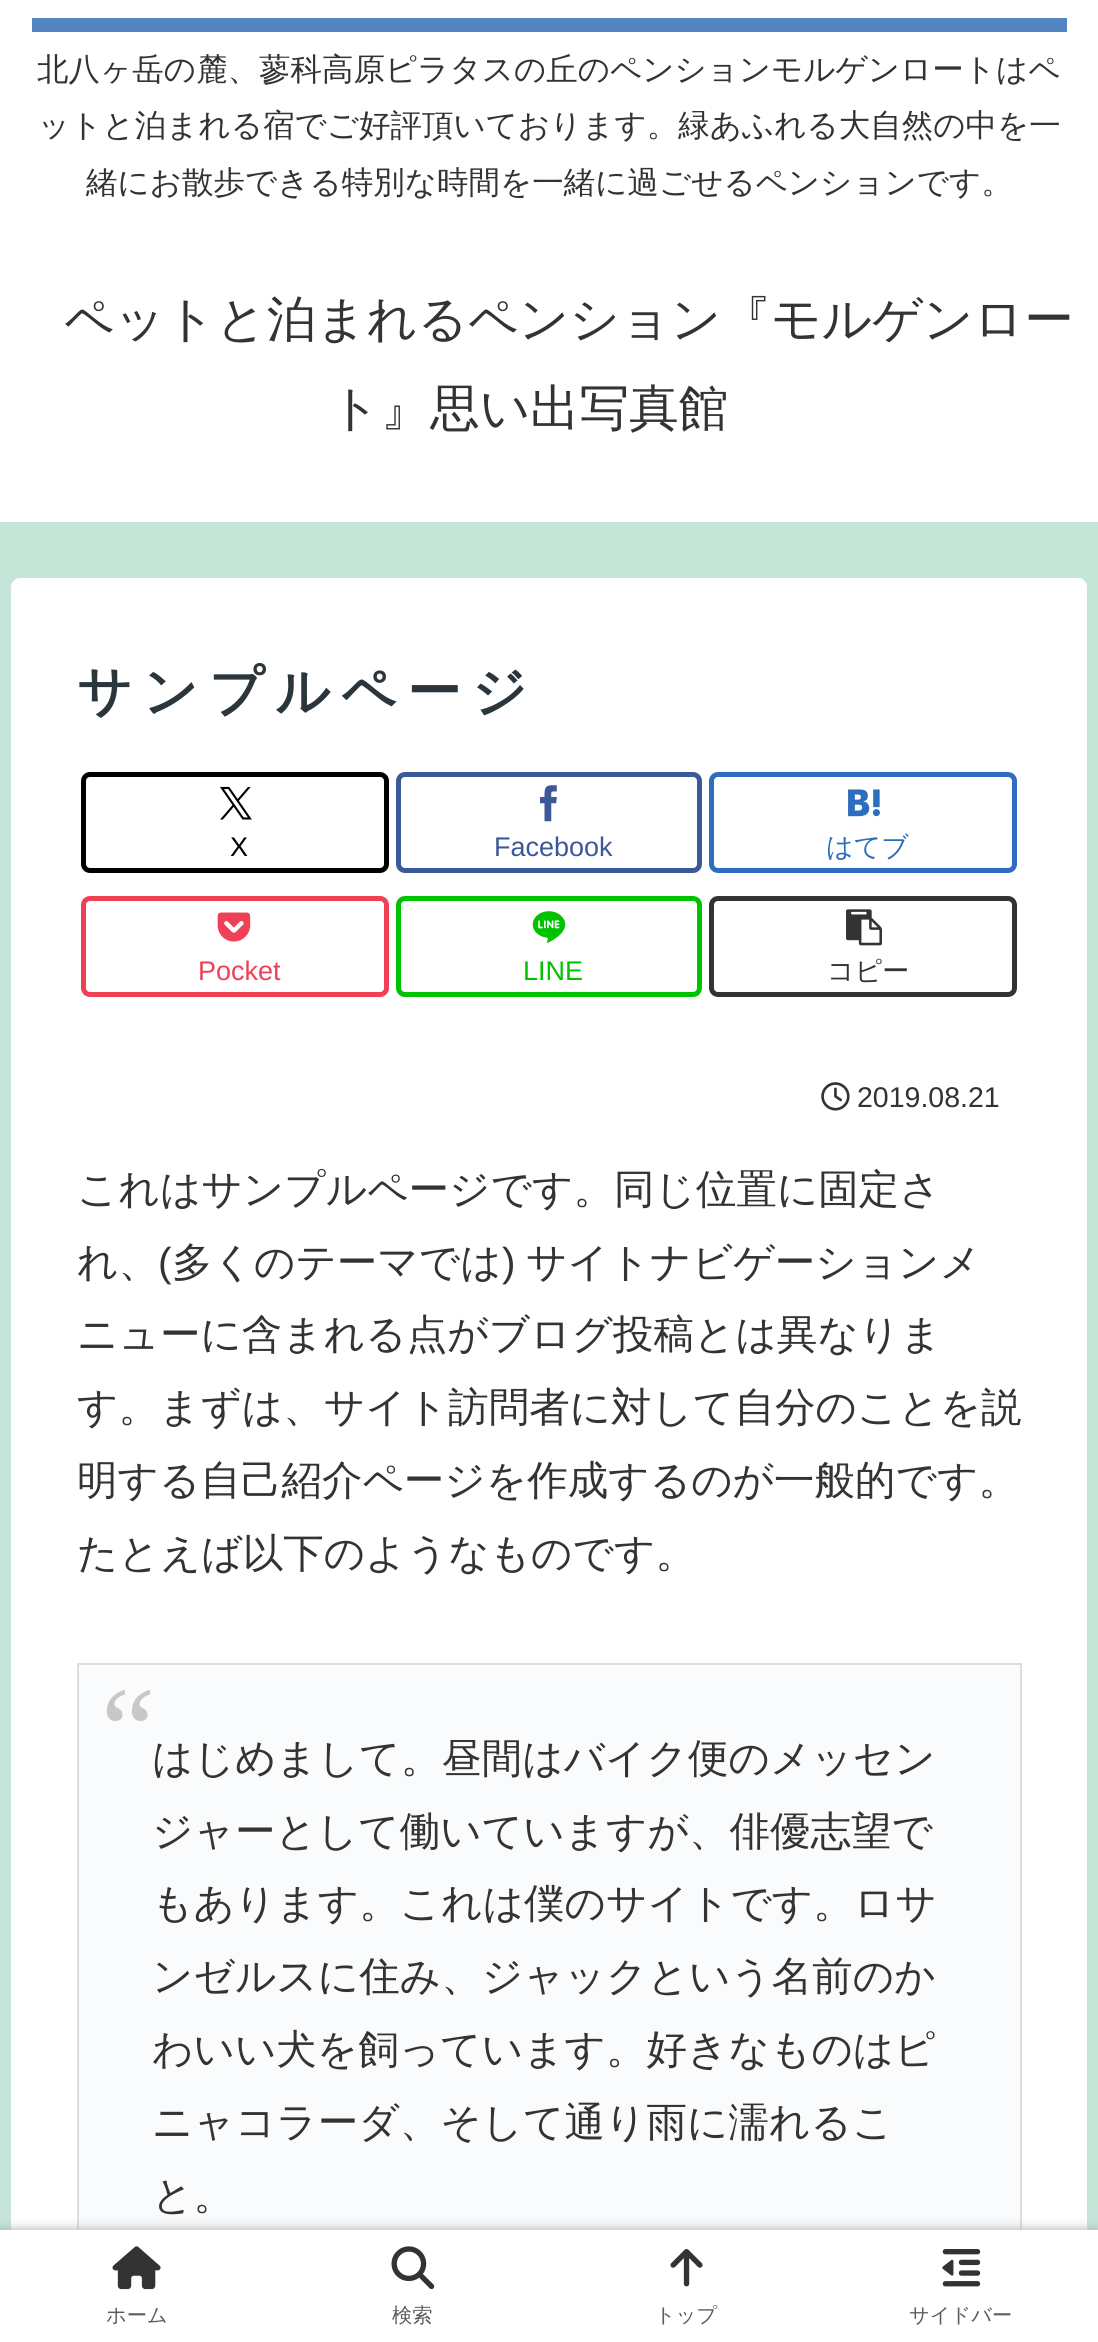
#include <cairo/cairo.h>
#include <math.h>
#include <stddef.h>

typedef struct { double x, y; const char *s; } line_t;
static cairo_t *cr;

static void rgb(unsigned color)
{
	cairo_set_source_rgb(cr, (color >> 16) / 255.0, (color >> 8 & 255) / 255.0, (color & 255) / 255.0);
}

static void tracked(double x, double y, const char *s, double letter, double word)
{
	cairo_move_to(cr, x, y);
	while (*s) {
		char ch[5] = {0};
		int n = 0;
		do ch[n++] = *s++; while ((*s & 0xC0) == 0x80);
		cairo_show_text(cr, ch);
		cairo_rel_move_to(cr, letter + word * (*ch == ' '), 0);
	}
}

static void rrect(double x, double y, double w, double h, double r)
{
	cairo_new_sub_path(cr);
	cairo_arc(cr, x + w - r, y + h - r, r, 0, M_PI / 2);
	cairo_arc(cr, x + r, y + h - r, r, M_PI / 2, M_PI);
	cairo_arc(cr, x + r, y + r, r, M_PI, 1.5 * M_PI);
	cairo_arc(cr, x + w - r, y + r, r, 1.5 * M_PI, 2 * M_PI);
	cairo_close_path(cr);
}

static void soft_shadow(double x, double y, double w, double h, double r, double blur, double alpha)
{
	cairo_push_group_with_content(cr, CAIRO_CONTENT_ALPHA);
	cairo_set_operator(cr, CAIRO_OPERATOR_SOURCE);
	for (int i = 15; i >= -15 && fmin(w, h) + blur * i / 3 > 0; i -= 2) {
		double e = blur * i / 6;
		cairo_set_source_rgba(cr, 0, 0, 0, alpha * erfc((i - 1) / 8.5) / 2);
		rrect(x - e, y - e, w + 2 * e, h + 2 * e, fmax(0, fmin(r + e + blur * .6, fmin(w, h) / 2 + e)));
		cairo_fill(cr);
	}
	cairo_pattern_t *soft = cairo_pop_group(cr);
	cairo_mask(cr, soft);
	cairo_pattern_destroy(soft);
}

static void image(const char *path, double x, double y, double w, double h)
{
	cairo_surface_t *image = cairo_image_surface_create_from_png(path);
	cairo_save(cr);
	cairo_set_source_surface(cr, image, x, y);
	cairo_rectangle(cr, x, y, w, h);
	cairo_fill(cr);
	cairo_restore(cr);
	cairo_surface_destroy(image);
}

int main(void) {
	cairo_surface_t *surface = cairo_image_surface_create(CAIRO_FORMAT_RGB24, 1098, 2342);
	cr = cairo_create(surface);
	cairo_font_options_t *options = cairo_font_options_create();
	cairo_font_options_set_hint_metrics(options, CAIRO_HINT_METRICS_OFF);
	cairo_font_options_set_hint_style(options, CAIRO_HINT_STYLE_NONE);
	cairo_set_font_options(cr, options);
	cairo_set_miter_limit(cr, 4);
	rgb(0xc6e5d9);
	cairo_paint(cr);
	rgb(0xffffff);
	cairo_rectangle(cr, 0, 0, 1098, 522);
	cairo_fill(cr);
	rgb(0x5385c2);
	cairo_rectangle(cr, 32, 18, 1035, 14);
	cairo_fill(cr);
	rgb(0xffffff);
	rrect(11, 578, 1076, 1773, 9);
	cairo_fill(cr);
	rrect(83.5, 774.5, 303, 96, 6.5);
	rgb(0x000000);
	cairo_set_line_width(cr, 5);
	cairo_stroke(cr);
	image("img/1.png", 220, 786, 32, 34);
	rrect(398.5, 774.5, 301, 96, 6.5);
	rgb(0x3b5998);
	cairo_stroke(cr);
	image("img/2.png", 540, 785, 17, 37);
	rrect(711.5, 774.5, 303, 96, 6.5);
	rgb(0x2c6ebd);
	cairo_stroke(cr);
	image("img/3.png", 848, 789, 32, 28);
	rrect(83.5, 898.5, 303, 96, 6.5);
	rgb(0xef4056);
	cairo_stroke(cr);
	image("img/4.png", 217, 912, 34, 30);
	rrect(398.5, 898.5, 301, 96, 6.5);
	rgb(0x00c300);
	cairo_stroke(cr);
	image("img/5.png", 532, 911, 34, 32);
	rrect(711.5, 898.5, 303, 96, 6.5);
	rgb(0x333333);
	cairo_stroke(cr);
	image("img/6.png", 846, 909, 36, 37);
	image("img/7.png", 821, 1082, 29, 29);
	rgb(0xfafbfc);
	cairo_rectangle(cr, 79, 1665, 941, 565);
	cairo_fill(cr);
	cairo_rectangle(cr, 78, 1664, 943, 626);
	rgb(0xdddddd);
	cairo_set_line_width(cr, 2);
	cairo_stroke(cr);
	rgb(0xa9a9a9);
	soft_shadow(0, 2230, 1098, 112, 0, 5.5, 1);
	rgb(0xffffff);
	cairo_rectangle(cr, 0, 2230, 1098, 112);
	cairo_fill(cr);
	image("img/8.png", 112, 2246, 49, 44);
	image("img/9.png", 391, 2246, 44, 44);
	image("img/10.png", 670, 2249, 33, 38);
	image("img/11.png", 942, 2249, 39, 38);
	cairo_select_font_face(cr, "WenQuanYi Zen Hei Medium", CAIRO_FONT_SLANT_NORMAL, CAIRO_FONT_WEIGHT_NORMAL);
	cairo_set_font_size(cr, 31.5);
	rgb(0x333333);
	{
		static const line_t items[] = {
			{37, 80, "北八ヶ岳の麓、蓼科高原ピラタスの丘のペンションモルゲンロートはペ"},
			{38, 136, "ットと泊まれる宿でご好評頂いております。緑あふれる大自然の中を一"},
			{86, 193, "緒にお散歩できる特別な時間を一緒に過ごせるペンションです。"},
		};
		for (size_t i = 0; i < sizeof items / sizeof *items; i++) {
			cairo_move_to(cr, items[i].x, items[i].y);
			cairo_show_text(cr, items[i].s);
		}
	}
	cairo_set_font_size(cr, 49.5);
	cairo_move_to(cr, 64, 336);
	cairo_show_text(cr, "ペットと泊まれるペンション『モルゲンロー");
	cairo_move_to(cr, 330, 425);
	cairo_show_text(cr, "ト』思い出写真館");
	cairo_select_font_face(cr, "WenQuanYi Zen Hei", CAIRO_FONT_SLANT_NORMAL, CAIRO_FONT_WEIGHT_BOLD);
	cairo_set_font_size(cr, 54);
	rgb(0x2a363b);
	tracked(77, 710, "サンプルページ", 10.75, 0);
	cairo_select_font_face(cr, "Liberation Sans", CAIRO_FONT_SLANT_NORMAL, CAIRO_FONT_WEIGHT_NORMAL);
	cairo_set_font_size(cr, 27);
	rgb(0x000000);
	cairo_move_to(cr, 230, 856);
	cairo_show_text(cr, "X");
	rgb(0x3b5998);
	cairo_move_to(cr, 494, 856);
	cairo_show_text(cr, "Facebook");
	cairo_select_font_face(cr, "WenQuanYi Zen Hei Medium", CAIRO_FONT_SLANT_NORMAL, CAIRO_FONT_WEIGHT_NORMAL);
	rgb(0x2c6ebd);
	cairo_move_to(cr, 826, 856);
	cairo_show_text(cr, "はてブ");
	cairo_select_font_face(cr, "Liberation Sans", CAIRO_FONT_SLANT_NORMAL, CAIRO_FONT_WEIGHT_NORMAL);
	rgb(0xef4056);
	cairo_move_to(cr, 198, 980);
	cairo_show_text(cr, "Pocket");
	rgb(0x00c300);
	cairo_move_to(cr, 523, 980);
	cairo_show_text(cr, "LINE");
	cairo_select_font_face(cr, "WenQuanYi Zen Hei Medium", CAIRO_FONT_SLANT_NORMAL, CAIRO_FONT_WEIGHT_NORMAL);
	rgb(0x333333);
	cairo_move_to(cr, 827, 980);
	cairo_show_text(cr, "コピー");
	cairo_select_font_face(cr, "Liberation Sans", CAIRO_FONT_SLANT_NORMAL, CAIRO_FONT_WEIGHT_NORMAL);
	cairo_set_font_size(cr, 28.5);
	cairo_move_to(cr, 857, 1107);
	cairo_show_text(cr, "2019.08.21");
	cairo_select_font_face(cr, "WenQuanYi Zen Hei Medium", CAIRO_FONT_SLANT_NORMAL, CAIRO_FONT_WEIGHT_NORMAL);
	cairo_set_font_size(cr, 40.5);
	cairo_move_to(cr, 77, 1203);
	cairo_show_text(cr, "これはサンプルページです。同じ位置に固定さ");
	cairo_move_to(cr, 77, 1276);
	cairo_show_text(cr, "れ、");
	cairo_select_font_face(cr, "Liberation Sans", CAIRO_FONT_SLANT_NORMAL, CAIRO_FONT_WEIGHT_NORMAL);
	cairo_move_to(cr, 158, 1276);
	cairo_show_text(cr, "(");
	cairo_select_font_face(cr, "WenQuanYi Zen Hei Medium", CAIRO_FONT_SLANT_NORMAL, CAIRO_FONT_WEIGHT_NORMAL);
	cairo_move_to(cr, 172, 1276);
	cairo_show_text(cr, "多くのテーマでは");
	cairo_select_font_face(cr, "Liberation Sans", CAIRO_FONT_SLANT_NORMAL, CAIRO_FONT_WEIGHT_NORMAL);
	cairo_move_to(cr, 502, 1276);
	cairo_show_text(cr, ")");
	cairo_select_font_face(cr, "WenQuanYi Zen Hei Medium", CAIRO_FONT_SLANT_NORMAL, CAIRO_FONT_WEIGHT_NORMAL);
	{
		static const line_t items[] = {
			{526, 1276, "サイトナビゲーションメ"},
			{77, 1348, "ニューに含まれる点がブログ投稿とは異なりま"},
			{77, 1421, "す。まずは、サイト訪問者に対して自分のことを説"},
			{77, 1494, "明する自己紹介ページを作成するのが一般的です。"},
			{77, 1567, "たとえば以下のようなものです。"},
		};
		for (size_t i = 0; i < sizeof items / sizeof *items; i++) {
			cairo_move_to(cr, items[i].x, items[i].y);
			cairo_show_text(cr, items[i].s);
		}
	}
	cairo_select_font_face(cr, "Liberation Serif", CAIRO_FONT_SLANT_NORMAL, CAIRO_FONT_WEIGHT_NORMAL);
	cairo_set_font_size(cr, 122);
	rgb(0xc8c8c8);
	cairo_move_to(cr, 101, 1771);
	cairo_show_text(cr, "“");
	cairo_select_font_face(cr, "WenQuanYi Zen Hei Medium", CAIRO_FONT_SLANT_NORMAL, CAIRO_FONT_WEIGHT_NORMAL);
	cairo_set_font_size(cr, 40.5);
	rgb(0x333333);
	{
		static const line_t items[] = {
			{152, 1772, "はじめまして。昼間はバイク便のメッセン"},
			{152, 1845, "ジャーとして働いていますが、俳優志望で"},
			{152, 1917, "もあります。これは僕のサイトです。ロサ"},
			{152, 1990, "ンゼルスに住み、ジャックという名前のか"},
			{152, 2063, "わいい犬を飼っています。好きなものはピ"},
			{152, 2136, "ニャコラーダ、そして通り雨に濡れるこ"},
			{152, 2209, "と。"},
		};
		for (size_t i = 0; i < sizeof items / sizeof *items; i++) {
			cairo_move_to(cr, items[i].x, items[i].y);
			cairo_show_text(cr, items[i].s);
		}
	}
	cairo_set_font_size(cr, 20.25);
	rgb(0x5c5c5c);
	{
		static const line_t items[] = {
			{106, 2322, "ホーム"},
			{392, 2322, "検索"},
			{655, 2322, "トップ"},
			{909, 2322, "サイドバー"},
		};
		for (size_t i = 0; i < sizeof items / sizeof *items; i++) {
			cairo_move_to(cr, items[i].x, items[i].y);
			cairo_show_text(cr, items[i].s);
		}
	}
	cairo_surface_write_to_png(surface, "page.png");
	cairo_font_options_destroy(options);
	cairo_destroy(cr);
	cairo_surface_destroy(surface);
	return 0;
}
